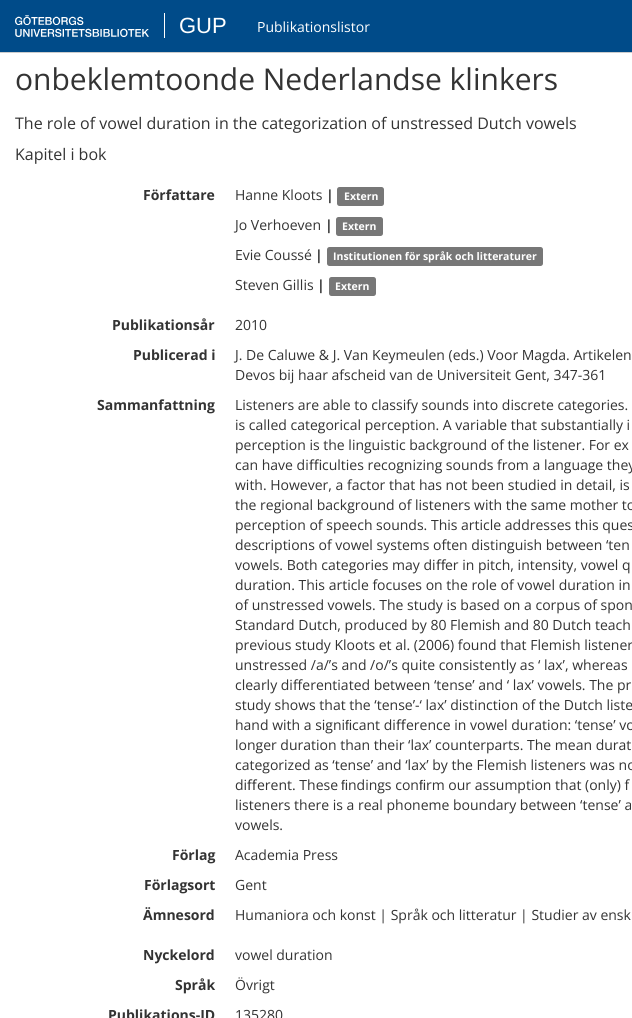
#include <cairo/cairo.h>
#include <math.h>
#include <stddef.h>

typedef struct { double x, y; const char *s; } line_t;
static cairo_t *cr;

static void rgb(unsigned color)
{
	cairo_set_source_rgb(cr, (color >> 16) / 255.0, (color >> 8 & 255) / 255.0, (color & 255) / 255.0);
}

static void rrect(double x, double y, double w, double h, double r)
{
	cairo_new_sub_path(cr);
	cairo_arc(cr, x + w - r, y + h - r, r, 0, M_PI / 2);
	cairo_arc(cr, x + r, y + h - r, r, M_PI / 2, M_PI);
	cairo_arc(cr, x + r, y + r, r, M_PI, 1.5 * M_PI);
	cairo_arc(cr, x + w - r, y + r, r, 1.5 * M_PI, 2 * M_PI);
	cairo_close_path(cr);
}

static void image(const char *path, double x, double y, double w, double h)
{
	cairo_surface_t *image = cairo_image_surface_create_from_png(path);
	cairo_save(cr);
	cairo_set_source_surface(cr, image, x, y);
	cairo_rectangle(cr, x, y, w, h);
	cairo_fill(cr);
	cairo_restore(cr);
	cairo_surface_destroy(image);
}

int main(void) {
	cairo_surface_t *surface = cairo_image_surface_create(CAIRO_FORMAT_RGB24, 632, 1018);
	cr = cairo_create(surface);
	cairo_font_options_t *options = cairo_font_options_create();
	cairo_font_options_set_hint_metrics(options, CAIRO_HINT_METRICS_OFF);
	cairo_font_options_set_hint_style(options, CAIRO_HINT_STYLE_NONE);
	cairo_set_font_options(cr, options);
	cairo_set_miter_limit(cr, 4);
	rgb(0xffffff);
	cairo_paint(cr);
	rgb(0x004b89);
	cairo_rectangle(cr, 0, 0, 632, 52);
	cairo_fill(cr);
	rgb(0xcccccc);
	cairo_rectangle(cr, 0, 52, 632, 1);
	cairo_fill(cr);
	image("img/1.png", 15, 15, 134, 22);
	rgb(0xffffff);
	cairo_rectangle(cr, 164, 13, 1, 25);
	cairo_fill(cr);
	rgb(0x777777);
	rrect(337, 187, 47, 19, 2.5);
	cairo_fill(cr);
	rrect(336, 217, 47, 19, 2.5);
	cairo_fill(cr);
	rrect(327, 247, 216, 19, 2.5);
	cairo_fill(cr);
	rrect(329, 277, 47, 19, 2.5);
	cairo_fill(cr);
	cairo_select_font_face(cr, "Liberation Sans", CAIRO_FONT_SLANT_NORMAL, CAIRO_FONT_WEIGHT_NORMAL);
	cairo_set_font_size(cr, 22);
	rgb(0xffffff);
	cairo_move_to(cr, 179, 33);
	cairo_show_text(cr, "GUP");
	cairo_select_font_face(cr, "Open Sans", CAIRO_FONT_SLANT_NORMAL, CAIRO_FONT_WEIGHT_NORMAL);
	cairo_set_font_size(cr, 14);
	cairo_move_to(cr, 257, 32);
	cairo_show_text(cr, "Publikationslistor");
	cairo_set_font_size(cr, 30);
	rgb(0x333333);
	cairo_move_to(cr, 15, 90);
	cairo_show_text(cr, "onbeklemtoonde Nederlandse klinkers");
	cairo_set_font_size(cr, 16);
	cairo_move_to(cr, 15, 129);
	cairo_show_text(cr, "The role of vowel duration in the categorization of unstressed Dutch vowels");
	cairo_move_to(cr, 15, 160);
	cairo_show_text(cr, "Kapitel i bok");
	cairo_select_font_face(cr, "Open Sans", CAIRO_FONT_SLANT_NORMAL, CAIRO_FONT_WEIGHT_BOLD);
	cairo_set_font_size(cr, 14);
	cairo_move_to(cr, 143, 200);
	cairo_show_text(cr, "Författare");
	cairo_select_font_face(cr, "Open Sans", CAIRO_FONT_SLANT_NORMAL, CAIRO_FONT_WEIGHT_NORMAL);
	cairo_move_to(cr, 235, 200);
	cairo_show_text(cr, "Hanne Kloots");
	cairo_select_font_face(cr, "Open Sans", CAIRO_FONT_SLANT_NORMAL, CAIRO_FONT_WEIGHT_BOLD);
	cairo_move_to(cr, 326, 200);
	cairo_show_text(cr, "|");
	cairo_set_font_size(cr, 10.5);
	rgb(0xffffff);
	cairo_move_to(cr, 344, 200);
	cairo_show_text(cr, "Extern");
	cairo_select_font_face(cr, "Open Sans", CAIRO_FONT_SLANT_NORMAL, CAIRO_FONT_WEIGHT_NORMAL);
	cairo_set_font_size(cr, 14);
	rgb(0x333333);
	cairo_move_to(cr, 235, 230);
	cairo_show_text(cr, "Jo Verhoeven");
	cairo_select_font_face(cr, "Open Sans", CAIRO_FONT_SLANT_NORMAL, CAIRO_FONT_WEIGHT_BOLD);
	cairo_move_to(cr, 325, 230);
	cairo_show_text(cr, "|");
	cairo_set_font_size(cr, 10.5);
	rgb(0xffffff);
	cairo_move_to(cr, 342, 230);
	cairo_show_text(cr, "Extern");
	cairo_select_font_face(cr, "Open Sans", CAIRO_FONT_SLANT_NORMAL, CAIRO_FONT_WEIGHT_NORMAL);
	cairo_set_font_size(cr, 14);
	rgb(0x333333);
	cairo_move_to(cr, 235, 260);
	cairo_show_text(cr, "Evie Coussé");
	cairo_select_font_face(cr, "Open Sans", CAIRO_FONT_SLANT_NORMAL, CAIRO_FONT_WEIGHT_BOLD);
	cairo_move_to(cr, 315, 260);
	cairo_show_text(cr, "|");
	cairo_set_font_size(cr, 10.5);
	rgb(0xffffff);
	cairo_move_to(cr, 333, 260);
	cairo_show_text(cr, "Institutionen för språk och litteraturer");
	cairo_select_font_face(cr, "Open Sans", CAIRO_FONT_SLANT_NORMAL, CAIRO_FONT_WEIGHT_NORMAL);
	cairo_set_font_size(cr, 14);
	rgb(0x333333);
	cairo_move_to(cr, 235, 290);
	cairo_show_text(cr, "Steven Gillis");
	cairo_select_font_face(cr, "Open Sans", CAIRO_FONT_SLANT_NORMAL, CAIRO_FONT_WEIGHT_BOLD);
	cairo_move_to(cr, 317, 290);
	cairo_show_text(cr, "|");
	cairo_set_font_size(cr, 10.5);
	rgb(0xffffff);
	cairo_move_to(cr, 335, 290);
	cairo_show_text(cr, "Extern");
	cairo_set_font_size(cr, 14);
	rgb(0x333333);
	cairo_move_to(cr, 112, 330);
	cairo_show_text(cr, "Publikationsår");
	cairo_select_font_face(cr, "Open Sans", CAIRO_FONT_SLANT_NORMAL, CAIRO_FONT_WEIGHT_NORMAL);
	cairo_move_to(cr, 235, 330);
	cairo_show_text(cr, "2010");
	cairo_select_font_face(cr, "Open Sans", CAIRO_FONT_SLANT_NORMAL, CAIRO_FONT_WEIGHT_BOLD);
	cairo_move_to(cr, 133, 360);
	cairo_show_text(cr, "Publicerad i");
	cairo_select_font_face(cr, "Open Sans", CAIRO_FONT_SLANT_NORMAL, CAIRO_FONT_WEIGHT_NORMAL);
	cairo_move_to(cr, 235, 360);
	cairo_show_text(cr, "J. De Caluwe & J. Van Keymeulen (eds.) Voor Magda. Artikelen");
	cairo_move_to(cr, 235, 380);
	cairo_show_text(cr, "Devos bij haar afscheid van de Universiteit Gent, 347-361");
	cairo_select_font_face(cr, "Open Sans", CAIRO_FONT_SLANT_NORMAL, CAIRO_FONT_WEIGHT_BOLD);
	cairo_move_to(cr, 97, 410);
	cairo_show_text(cr, "Sammanfattning");
	cairo_select_font_face(cr, "Open Sans", CAIRO_FONT_SLANT_NORMAL, CAIRO_FONT_WEIGHT_NORMAL);
	{
		static const line_t items[] = {
			{235, 410, "Listeners are able to classify sounds into discrete categories."},
			{235, 430, "is called categorical perception. A variable that substantially i"},
			{235, 450, "perception is the linguistic background of the listener. For ex"},
			{235, 470, "can have di"},
		};
		for (size_t i = 0; i < sizeof items / sizeof *items; i++) {
			cairo_move_to(cr, items[i].x, items[i].y);
			cairo_show_text(cr, items[i].s);
		}
	}
	cairo_select_font_face(cr, "Noto Sans", CAIRO_FONT_SLANT_NORMAL, CAIRO_FONT_WEIGHT_NORMAL);
	cairo_move_to(cr, 309, 470);
	cairo_show_text(cr, "ﬃ");
	cairo_select_font_face(cr, "Open Sans", CAIRO_FONT_SLANT_NORMAL, CAIRO_FONT_WEIGHT_NORMAL);
	{
		static const line_t items[] = {
			{322, 470, "culties recognizing sounds from a language they"},
			{235, 490, "with. However, a factor that has not been studied in detail, is"},
			{235, 510, "the regional background of listeners with the same mother to"},
			{235, 530, "perception of speech sounds. This article addresses this ques"},
			{235, 550, "descriptions of vowel systems often distinguish between ‘ten"},
			{235, 570, "vowels. Both categories may di"},
		};
		for (size_t i = 0; i < sizeof items / sizeof *items; i++) {
			cairo_move_to(cr, items[i].x, items[i].y);
			cairo_show_text(cr, items[i].s);
		}
	}
	cairo_select_font_face(cr, "Noto Sans", CAIRO_FONT_SLANT_NORMAL, CAIRO_FONT_WEIGHT_NORMAL);
	cairo_move_to(cr, 436, 570);
	cairo_show_text(cr, "ﬀ");
	cairo_select_font_face(cr, "Open Sans", CAIRO_FONT_SLANT_NORMAL, CAIRO_FONT_WEIGHT_NORMAL);
	{
		static const line_t items[] = {
			{445, 570, "er in pitch, intensity, vowel q"},
			{235, 590, "duration. This article focuses on the role of vowel duration in"},
			{235, 610, "of unstressed vowels. The study is based on a corpus of spon"},
			{235, 630, "Standard Dutch, produced by 80 Flemish and 80 Dutch teach"},
			{235, 650, "previous study Kloots et al. (2006) found that Flemish listener"},
			{235, 670, "unstressed /a/’s and /o/’s quite consistently as ‘ lax’, whereas"},
			{235, 690, "clearly differentiated between ‘tense’ and ‘ lax’ vowels. The pr"},
			{235, 710, "study shows that the ‘tense’-‘ lax’ distinction of the Dutch liste"},
			{235, 730, "hand with a signi"},
		};
		for (size_t i = 0; i < sizeof items / sizeof *items; i++) {
			cairo_move_to(cr, items[i].x, items[i].y);
			cairo_show_text(cr, items[i].s);
		}
	}
	cairo_select_font_face(cr, "Liberation Sans", CAIRO_FONT_SLANT_NORMAL, CAIRO_FONT_WEIGHT_NORMAL);
	cairo_move_to(cr, 345, 730);
	cairo_show_text(cr, "ﬁ");
	cairo_select_font_face(cr, "Open Sans", CAIRO_FONT_SLANT_NORMAL, CAIRO_FONT_WEIGHT_NORMAL);
	cairo_move_to(cr, 352, 730);
	cairo_show_text(cr, "cant di");
	cairo_select_font_face(cr, "Noto Sans", CAIRO_FONT_SLANT_NORMAL, CAIRO_FONT_WEIGHT_NORMAL);
	cairo_move_to(cr, 396, 730);
	cairo_show_text(cr, "ﬀ");
	cairo_select_font_face(cr, "Open Sans", CAIRO_FONT_SLANT_NORMAL, CAIRO_FONT_WEIGHT_NORMAL);
	{
		static const line_t items[] = {
			{406, 730, "erence in vowel duration: ‘tense’ vo"},
			{235, 750, "longer duration than their ‘lax’ counterparts. The mean durat"},
			{235, 770, "categorized as ‘tense’ and ‘lax’ by the Flemish listeners was no"},
			{235, 790, "di"},
		};
		for (size_t i = 0; i < sizeof items / sizeof *items; i++) {
			cairo_move_to(cr, items[i].x, items[i].y);
			cairo_show_text(cr, items[i].s);
		}
	}
	cairo_select_font_face(cr, "Noto Sans", CAIRO_FONT_SLANT_NORMAL, CAIRO_FONT_WEIGHT_NORMAL);
	cairo_move_to(cr, 247, 790);
	cairo_show_text(cr, "ﬀ");
	cairo_select_font_face(cr, "Open Sans", CAIRO_FONT_SLANT_NORMAL, CAIRO_FONT_WEIGHT_NORMAL);
	cairo_move_to(cr, 257, 790);
	cairo_show_text(cr, "erent. These");
	cairo_select_font_face(cr, "Liberation Sans", CAIRO_FONT_SLANT_NORMAL, CAIRO_FONT_WEIGHT_NORMAL);
	cairo_move_to(cr, 341, 790);
	cairo_show_text(cr, "ﬁ");
	cairo_select_font_face(cr, "Open Sans", CAIRO_FONT_SLANT_NORMAL, CAIRO_FONT_WEIGHT_NORMAL);
	cairo_move_to(cr, 348, 790);
	cairo_show_text(cr, "ndings con");
	cairo_select_font_face(cr, "Liberation Sans", CAIRO_FONT_SLANT_NORMAL, CAIRO_FONT_WEIGHT_NORMAL);
	cairo_move_to(cr, 419, 790);
	cairo_show_text(cr, "ﬁ");
	cairo_select_font_face(cr, "Open Sans", CAIRO_FONT_SLANT_NORMAL, CAIRO_FONT_WEIGHT_NORMAL);
	{
		static const line_t items[] = {
			{426, 790, "rm our assumption that (only) f"},
			{235, 810, "listeners there is a real phoneme boundary between ‘tense’ a"},
			{235, 830, "vowels."},
		};
		for (size_t i = 0; i < sizeof items / sizeof *items; i++) {
			cairo_move_to(cr, items[i].x, items[i].y);
			cairo_show_text(cr, items[i].s);
		}
	}
	cairo_select_font_face(cr, "Open Sans", CAIRO_FONT_SLANT_NORMAL, CAIRO_FONT_WEIGHT_BOLD);
	cairo_move_to(cr, 172, 860);
	cairo_show_text(cr, "Förlag");
	cairo_select_font_face(cr, "Open Sans", CAIRO_FONT_SLANT_NORMAL, CAIRO_FONT_WEIGHT_NORMAL);
	cairo_move_to(cr, 235, 860);
	cairo_show_text(cr, "Academia Press");
	cairo_select_font_face(cr, "Open Sans", CAIRO_FONT_SLANT_NORMAL, CAIRO_FONT_WEIGHT_BOLD);
	cairo_move_to(cr, 144, 890);
	cairo_show_text(cr, "Förlagsort");
	cairo_select_font_face(cr, "Open Sans", CAIRO_FONT_SLANT_NORMAL, CAIRO_FONT_WEIGHT_NORMAL);
	cairo_move_to(cr, 235, 890);
	cairo_show_text(cr, "Gent");
	cairo_select_font_face(cr, "Open Sans", CAIRO_FONT_SLANT_NORMAL, CAIRO_FONT_WEIGHT_BOLD);
	cairo_move_to(cr, 143, 920);
	cairo_show_text(cr, "Ämnesord");
	cairo_select_font_face(cr, "Open Sans", CAIRO_FONT_SLANT_NORMAL, CAIRO_FONT_WEIGHT_NORMAL);
	cairo_move_to(cr, 235, 920);
	cairo_show_text(cr, "Humaniora och konst | Språk och litteratur | Studier av ensk");
	cairo_select_font_face(cr, "Open Sans", CAIRO_FONT_SLANT_NORMAL, CAIRO_FONT_WEIGHT_BOLD);
	cairo_move_to(cr, 143, 960);
	cairo_show_text(cr, "Nyckelord");
	cairo_select_font_face(cr, "Open Sans", CAIRO_FONT_SLANT_NORMAL, CAIRO_FONT_WEIGHT_NORMAL);
	cairo_move_to(cr, 235, 960);
	cairo_show_text(cr, "vowel duration");
	cairo_select_font_face(cr, "Open Sans", CAIRO_FONT_SLANT_NORMAL, CAIRO_FONT_WEIGHT_BOLD);
	cairo_move_to(cr, 175, 990);
	cairo_show_text(cr, "Språk");
	cairo_select_font_face(cr, "Open Sans", CAIRO_FONT_SLANT_NORMAL, CAIRO_FONT_WEIGHT_NORMAL);
	cairo_move_to(cr, 235, 990);
	cairo_show_text(cr, "Övrigt");
	cairo_select_font_face(cr, "Open Sans", CAIRO_FONT_SLANT_NORMAL, CAIRO_FONT_WEIGHT_BOLD);
	cairo_move_to(cr, 108, 1020);
	cairo_show_text(cr, "Publikations-ID");
	cairo_select_font_face(cr, "Open Sans", CAIRO_FONT_SLANT_NORMAL, CAIRO_FONT_WEIGHT_NORMAL);
	cairo_move_to(cr, 235, 1020);
	cairo_show_text(cr, "135280");
	cairo_surface_write_to_png(surface, "page.png");
	cairo_font_options_destroy(options);
	cairo_destroy(cr);
	cairo_surface_destroy(surface);
	return 0;
}
